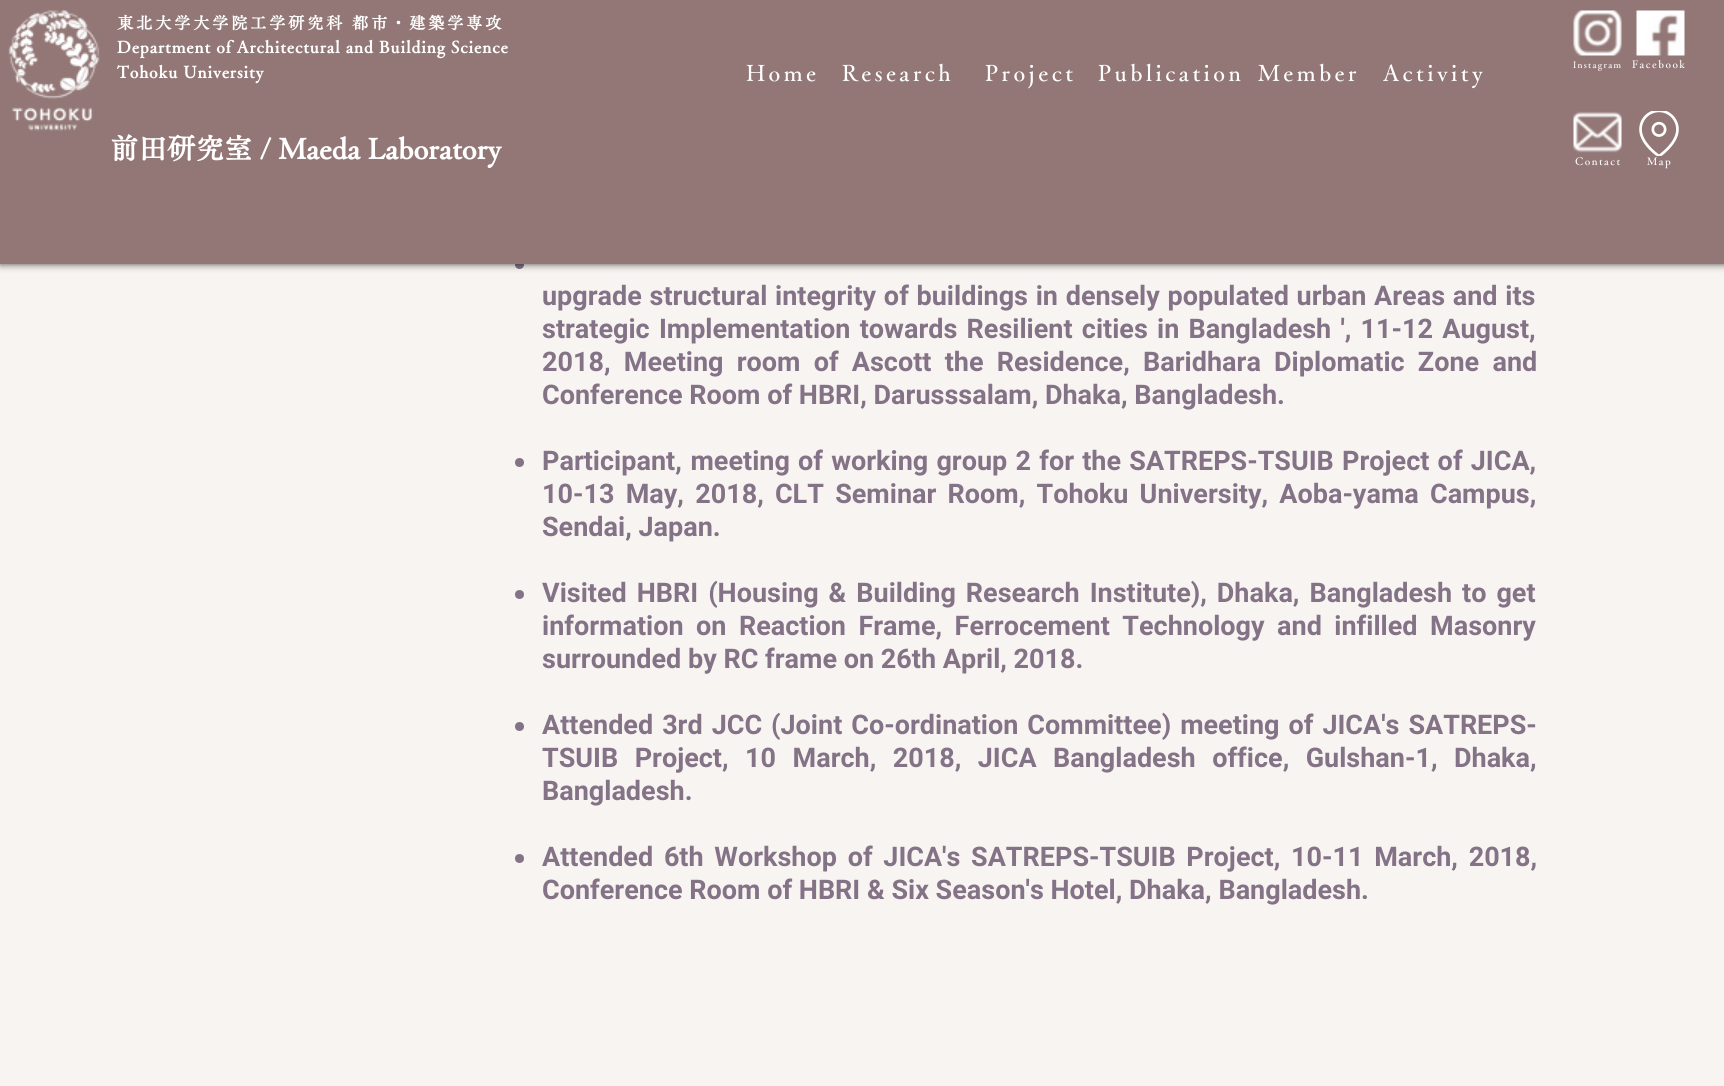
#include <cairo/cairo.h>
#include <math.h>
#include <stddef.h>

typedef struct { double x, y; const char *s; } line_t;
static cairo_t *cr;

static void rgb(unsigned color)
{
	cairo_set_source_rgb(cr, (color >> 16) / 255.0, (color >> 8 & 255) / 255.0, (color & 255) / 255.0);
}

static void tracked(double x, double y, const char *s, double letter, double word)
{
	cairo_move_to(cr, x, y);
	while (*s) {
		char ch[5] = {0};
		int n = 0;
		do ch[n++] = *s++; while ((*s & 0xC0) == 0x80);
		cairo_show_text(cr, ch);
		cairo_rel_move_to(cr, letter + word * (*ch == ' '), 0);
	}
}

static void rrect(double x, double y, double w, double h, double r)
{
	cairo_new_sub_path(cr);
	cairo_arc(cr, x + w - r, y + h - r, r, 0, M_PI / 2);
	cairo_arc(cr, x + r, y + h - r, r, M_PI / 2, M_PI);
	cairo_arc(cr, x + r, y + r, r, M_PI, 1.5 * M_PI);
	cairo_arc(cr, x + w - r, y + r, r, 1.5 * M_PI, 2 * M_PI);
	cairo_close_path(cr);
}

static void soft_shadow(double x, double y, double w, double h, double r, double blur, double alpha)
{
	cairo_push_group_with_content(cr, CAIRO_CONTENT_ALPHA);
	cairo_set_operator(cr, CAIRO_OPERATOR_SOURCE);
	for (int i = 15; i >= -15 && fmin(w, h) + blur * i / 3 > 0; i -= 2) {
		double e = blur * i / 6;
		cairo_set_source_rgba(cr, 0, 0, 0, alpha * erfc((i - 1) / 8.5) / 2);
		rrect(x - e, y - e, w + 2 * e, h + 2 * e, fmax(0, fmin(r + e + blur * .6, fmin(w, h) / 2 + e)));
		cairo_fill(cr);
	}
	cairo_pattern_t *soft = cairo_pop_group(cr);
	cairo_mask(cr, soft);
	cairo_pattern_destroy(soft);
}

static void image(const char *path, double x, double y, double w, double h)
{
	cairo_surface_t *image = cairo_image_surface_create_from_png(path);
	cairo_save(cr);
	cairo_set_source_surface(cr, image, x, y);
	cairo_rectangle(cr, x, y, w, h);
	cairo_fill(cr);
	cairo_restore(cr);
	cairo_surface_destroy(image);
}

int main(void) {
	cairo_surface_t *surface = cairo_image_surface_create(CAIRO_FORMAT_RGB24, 1724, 1086);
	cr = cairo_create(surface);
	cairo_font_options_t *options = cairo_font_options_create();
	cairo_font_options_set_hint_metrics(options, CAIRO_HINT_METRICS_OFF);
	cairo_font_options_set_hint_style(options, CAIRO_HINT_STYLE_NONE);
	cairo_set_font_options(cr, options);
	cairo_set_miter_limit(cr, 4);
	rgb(0xf8f4f1);
	cairo_paint(cr);
	rgb(0x847387);
	cairo_arc(cr, 519.5, 264.5, 4.5, 0, 2 * M_PI);
	cairo_fill(cr);
	rgb(0x000000);
	soft_shadow(0, 0, 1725, 264, 0, 4, 0.7);
	rgb(0x927776);
	cairo_rectangle(cr, 0, 0, 1724, 264);
	cairo_fill(cr);
	image("img/1.png", 8, 10, 92, 121);
	image("img/2.png", 1573, 10, 49, 46);
	image("img/3.png", 1636, 10, 49, 46);
	image("img/4.png", 1573, 111, 49, 42);
	image("img/5.png", 1639, 111, 40, 45);
	rgb(0x847387);
	cairo_arc(cr, 519.5, 462.5, 4.5, 0, 2 * M_PI);
	cairo_fill(cr);
	cairo_arc(cr, 519.5, 594.5, 4.5, 0, 2 * M_PI);
	cairo_fill(cr);
	cairo_arc(cr, 519.5, 726.5, 4.5, 0, 2 * M_PI);
	cairo_fill(cr);
	cairo_arc(cr, 519.5, 858.5, 4.5, 0, 2 * M_PI);
	cairo_fill(cr);
	cairo_select_font_face(cr, "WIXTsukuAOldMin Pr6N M", CAIRO_FONT_SLANT_NORMAL, CAIRO_FONT_WEIGHT_BOLD);
	cairo_set_font_size(cr, 16.5);
	rgb(0xffffff);
	tracked(117, 29, "東北大学大学院工学研究科 都市・建築学専攻", 2.5, 0);
	tracked(117, 53, "Department of Architectural and Building Science", 0.85, 0);
	tracked(117, 78, "Tohoku University", 0.85, 0);
	cairo_set_font_size(cr, 28.5);
	cairo_move_to(cr, 110, 159);
	cairo_show_text(cr, "前田研究室 / Maeda Laboratory");
	cairo_select_font_face(cr, "WIXTsukuAOldMin Pr6N M Medium", CAIRO_FONT_SLANT_NORMAL, CAIRO_FONT_WEIGHT_NORMAL);
	cairo_set_font_size(cr, 22.5);
	{
		static const line_t items[] = {
			{746, 81, "Home"},
			{842, 81, "Research"},
			{985, 81, "Project"},
			{1098, 81, "Publication"},
			{1258, 81, "Member"},
			{1383, 81, "Activity"},
		};
		for (size_t i = 0; i < sizeof items / sizeof *items; i++) {
			tracked(items[i].x, items[i].y, items[i].s, 3.4, 0);
		}
	}
	cairo_set_font_size(cr, 9);
	tracked(1573, 68, "Instagram", 1.25, 0);
	cairo_set_font_size(cr, 10.5);
	{
		static const line_t items[] = {
			{1632, 68, "Facebook"},
			{1575, 165, "Contact"},
			{1647, 165, "Map"},
		};
		for (size_t i = 0; i < sizeof items / sizeof *items; i++) {
			tracked(items[i].x, items[i].y, items[i].s, 1.5, 0);
		}
	}
	cairo_select_font_face(cr, "Roboto", CAIRO_FONT_SLANT_NORMAL, CAIRO_FONT_WEIGHT_BOLD);
	cairo_set_font_size(cr, 27);
	rgb(0x847387);
	tracked(542, 305, "upgrade structural integrity of buildings in densely populated urban Areas and its", 0, 1);
	tracked(542, 338, "strategic Implementation towards Resilient cities in Bangladesh ', 11-12 August,", 0, 2.5);
	tracked(542, 371, "2018, Meeting room of Ascott the Residence, Baridhara Diplomatic Zone and", 0, 6.5);
	cairo_move_to(cr, 542, 404);
	cairo_show_text(cr, "Conference Room of HBRI, Darusssalam, Dhaka, Bangladesh.");
	tracked(542, 470, "Participant, meeting", 0, 2);
	tracked(798, 470, "of working group 2 for the SATREPS-TSUIB Project of JICA,", 0, 1.5);
	tracked(542, 503, "10-13 May, 2018, CLT Seminar Room, Tohoku University, Aoba-yama Campus,", 0, 4.5);
	cairo_move_to(cr, 542, 536);
	cairo_show_text(cr, "Sendai, Japan.");
	tracked(542, 602, "Visited HBRI (Housing & Building Research Institute), Dhaka, Bangladesh to get", 0, 3.25);
	tracked(542, 635, "information on Reaction Frame, Ferrocement Technology and infilled Masonry", 0, 5.75);
	cairo_move_to(cr, 542, 668);
	cairo_show_text(cr, "surrounded by RC frame on 26th April, 2018.");
	tracked(542, 734, "Attended 3rd JCC (Joint Co-ordination Committee) meeting of JICA's SATREPS-", 0, 2.25);
	tracked(542, 767, "TSUIB Project, 10 March, 2018, JICA Bangladesh office, Gulshan-1, Dhaka,", 0, 9.75);
	cairo_move_to(cr, 542, 800);
	cairo_show_text(cr, "Bangladesh.");
	tracked(542, 866, "Attended 6th Workshop of JICA's SATREPS-TSUIB Project, 10-11 March, 2018,", 0, 4);
	cairo_move_to(cr, 542, 899);
	cairo_show_text(cr, "Conference Room of HBRI & Six Season's Hotel, Dhaka, Bangladesh.");
	cairo_surface_write_to_png(surface, "page.png");
	cairo_font_options_destroy(options);
	cairo_destroy(cr);
	cairo_surface_destroy(surface);
	return 0;
}
